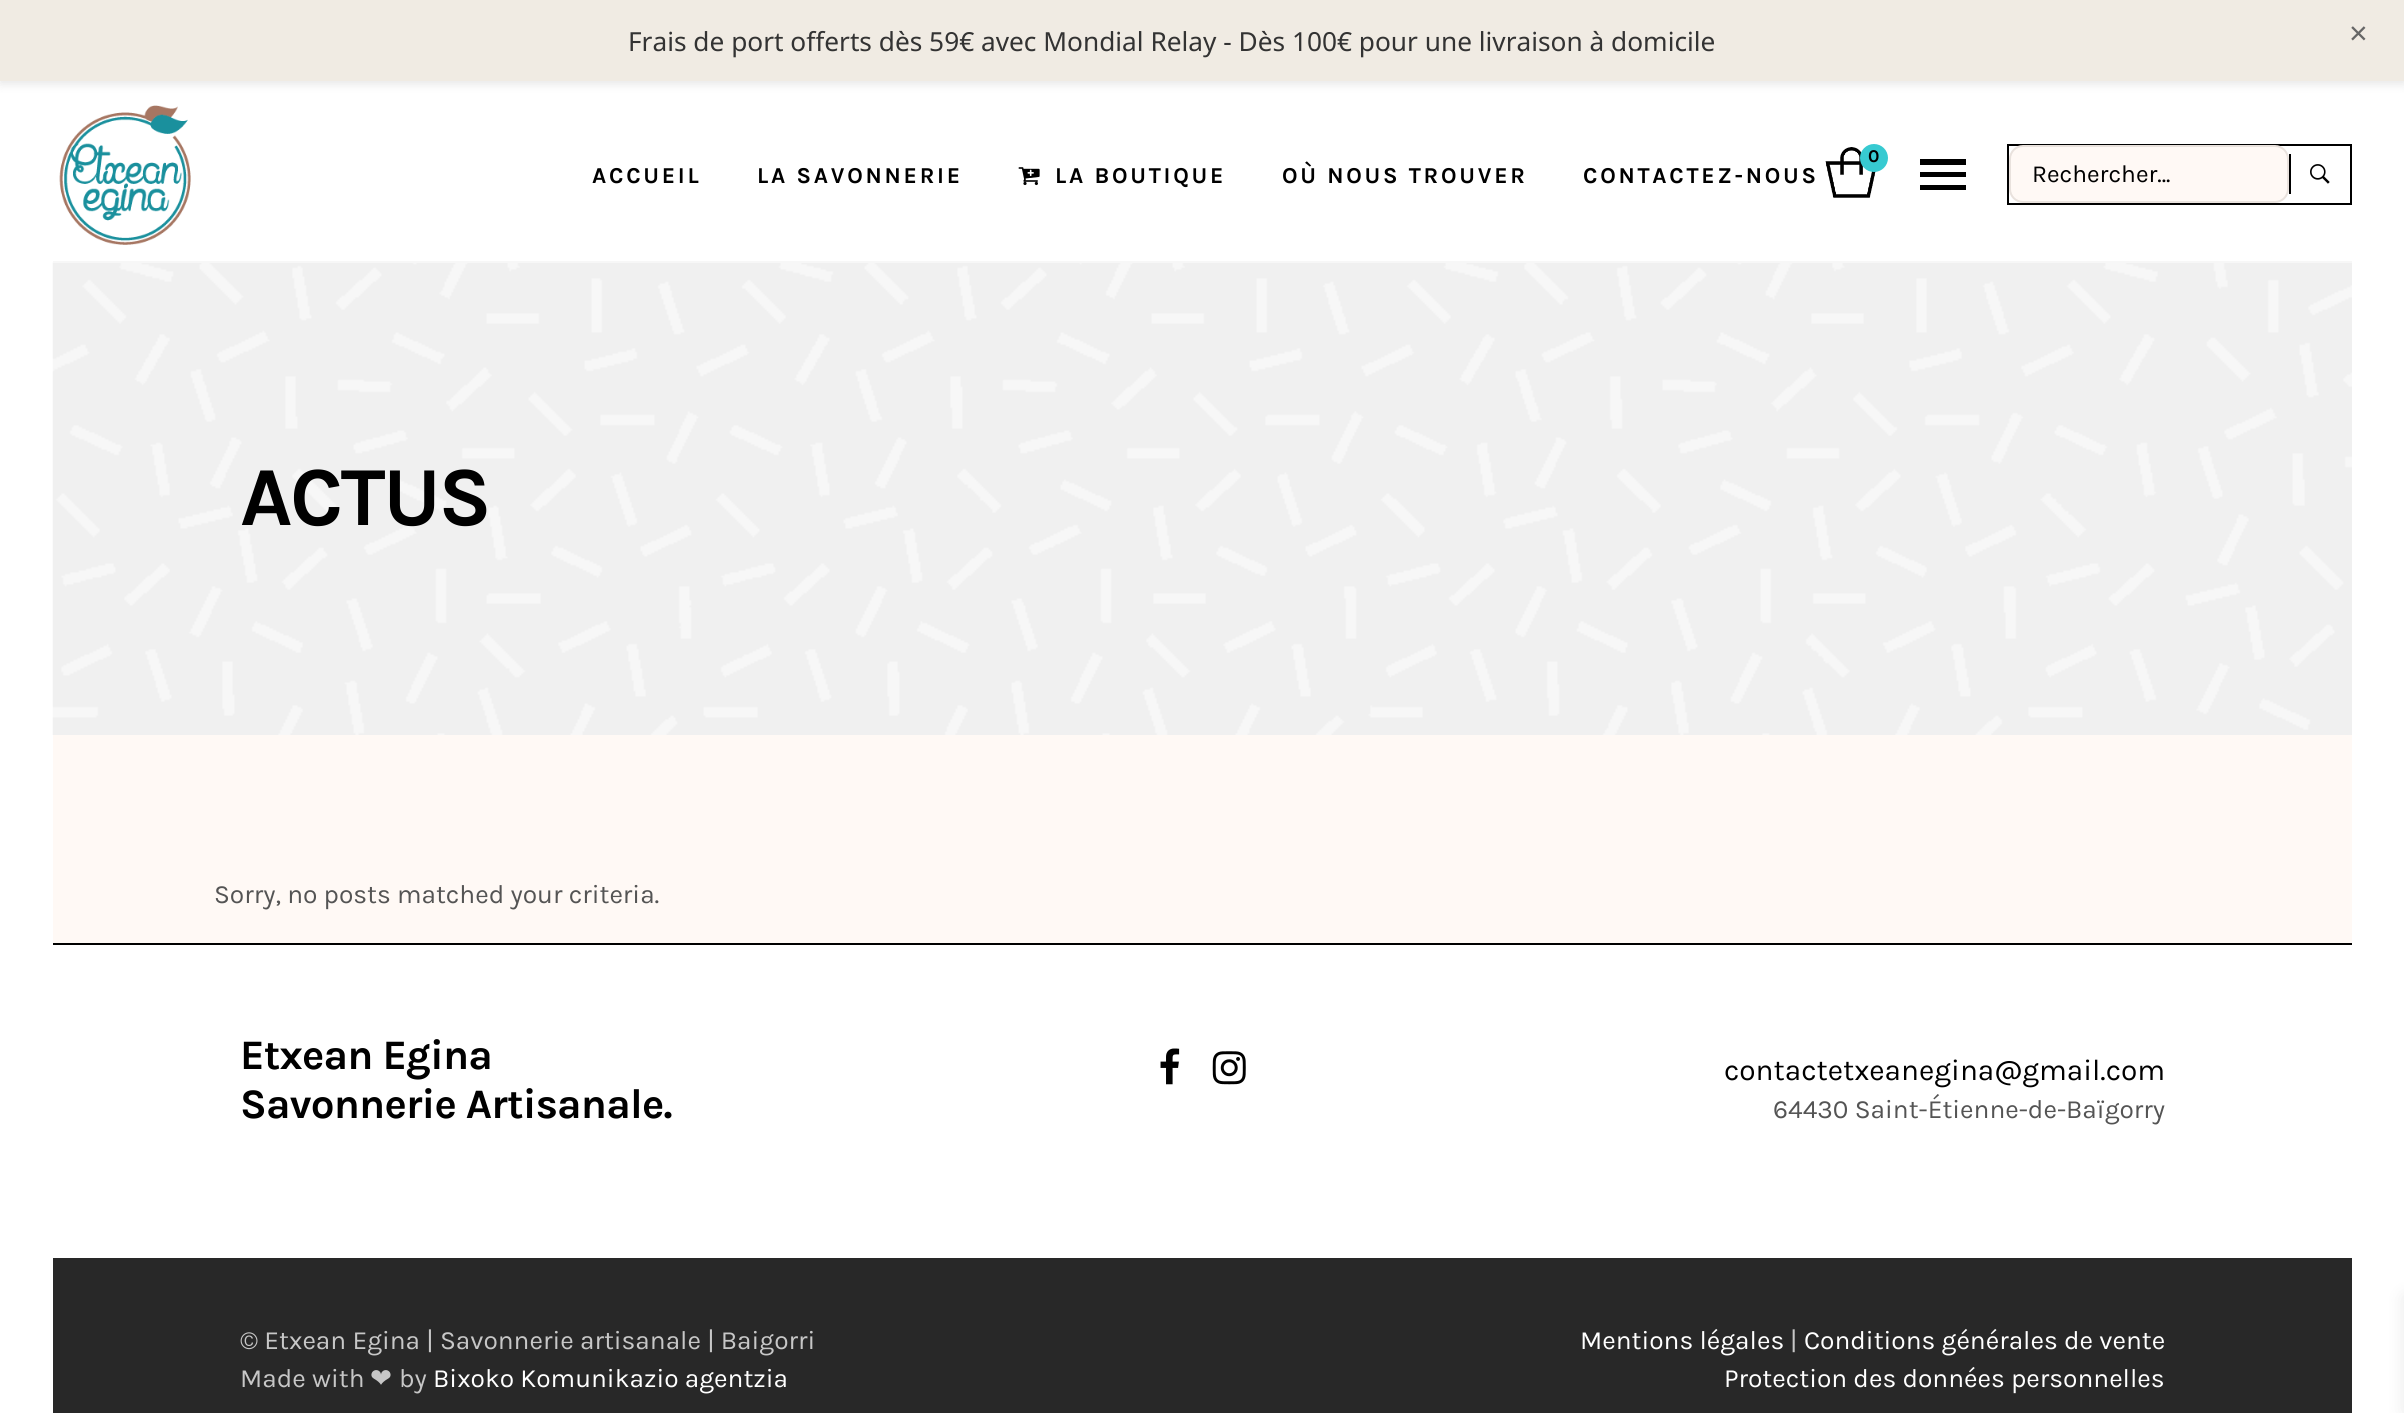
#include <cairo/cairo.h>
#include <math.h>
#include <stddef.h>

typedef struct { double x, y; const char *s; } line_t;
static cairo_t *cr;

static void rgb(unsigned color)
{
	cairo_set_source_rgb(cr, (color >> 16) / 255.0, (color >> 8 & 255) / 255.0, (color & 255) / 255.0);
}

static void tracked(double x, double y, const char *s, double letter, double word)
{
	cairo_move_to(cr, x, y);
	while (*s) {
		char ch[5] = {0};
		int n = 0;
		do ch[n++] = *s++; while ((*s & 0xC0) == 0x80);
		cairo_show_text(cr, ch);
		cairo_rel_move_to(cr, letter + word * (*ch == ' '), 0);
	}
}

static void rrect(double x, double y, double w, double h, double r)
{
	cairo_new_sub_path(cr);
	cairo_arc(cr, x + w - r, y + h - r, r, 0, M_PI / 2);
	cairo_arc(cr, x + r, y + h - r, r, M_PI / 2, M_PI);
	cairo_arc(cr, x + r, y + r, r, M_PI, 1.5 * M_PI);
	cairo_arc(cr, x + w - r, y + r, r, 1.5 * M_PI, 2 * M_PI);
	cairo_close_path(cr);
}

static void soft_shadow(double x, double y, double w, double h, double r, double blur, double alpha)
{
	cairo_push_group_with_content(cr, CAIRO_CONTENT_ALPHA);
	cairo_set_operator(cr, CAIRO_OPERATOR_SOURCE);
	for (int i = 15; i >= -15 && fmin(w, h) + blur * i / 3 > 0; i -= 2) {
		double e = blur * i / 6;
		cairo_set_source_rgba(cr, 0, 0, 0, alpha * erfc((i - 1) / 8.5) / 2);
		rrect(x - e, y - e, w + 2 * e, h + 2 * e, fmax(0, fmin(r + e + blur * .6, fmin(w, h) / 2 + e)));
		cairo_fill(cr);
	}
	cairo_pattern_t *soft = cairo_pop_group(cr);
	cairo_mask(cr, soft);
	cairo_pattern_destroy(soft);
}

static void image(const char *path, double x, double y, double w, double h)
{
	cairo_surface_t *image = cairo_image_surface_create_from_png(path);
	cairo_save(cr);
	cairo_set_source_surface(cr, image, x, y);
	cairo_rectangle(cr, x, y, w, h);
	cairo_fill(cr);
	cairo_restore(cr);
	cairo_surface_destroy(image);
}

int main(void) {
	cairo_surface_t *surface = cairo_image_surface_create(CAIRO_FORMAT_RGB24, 2404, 1413);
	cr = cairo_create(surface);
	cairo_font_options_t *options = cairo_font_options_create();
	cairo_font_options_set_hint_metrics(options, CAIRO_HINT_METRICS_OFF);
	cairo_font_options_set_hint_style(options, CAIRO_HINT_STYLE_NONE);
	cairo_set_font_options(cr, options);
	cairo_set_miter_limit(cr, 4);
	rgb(0xffffff);
	cairo_paint(cr);
	rgb(0x000000);
	soft_shadow(0, 4, 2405, 80, 0, 5, 0.1);
	rgb(0xf0ebe3);
	cairo_rectangle(cr, 0, 0, 2404, 81);
	cairo_fill(cr);
	image("img/5.png", 52, 262, 2300, 473);
	rgb(0xf7f7f7);
	cairo_rectangle(cr, 53, 261, 2299, 2);
	cairo_fill(cr);
	image("img/1.png", 59, 105, 132, 140);
	image("img/2.png", 1018, 167, 22, 19);
	image("img/3.png", 1825, 147, 51, 51);
	rgb(0x37cad1);
	cairo_arc(cr, 1874, 158, 14, 0, 2 * M_PI);
	cairo_fill(cr);
	rgb(0x000000);
	cairo_new_path(cr);
	cairo_move_to(cr, 1920, 190);
	cairo_line_to(cr, 1920, 185);
	cairo_line_to(cr, 1966, 185);
	cairo_line_to(cr, 1966, 190);
	cairo_close_path(cr);
	cairo_move_to(cr, 1920, 177);
	cairo_line_to(cr, 1920, 172);
	cairo_line_to(cr, 1966, 172);
	cairo_line_to(cr, 1966, 177);
	cairo_close_path(cr);
	cairo_move_to(cr, 1920, 159);
	cairo_line_to(cr, 1966, 159);
	cairo_line_to(cr, 1966, 165);
	cairo_line_to(cr, 1920, 165);
	cairo_close_path(cr);
	cairo_fill(cr);
	cairo_rectangle(cr, 2008, 145, 343, 59);
	cairo_stroke(cr);
	rgb(0xfff9f5);
	rrect(2010, 146, 278, 56, 13);
	cairo_fill_preserve(cr);
	rgb(0xe9e2dd);
	cairo_stroke(cr);
	rgb(0x000000);
	cairo_rectangle(cr, 2289, 154, 2, 40);
	cairo_fill(cr);
	image("img/4.png", 2310, 164, 20, 20);
	rgb(0xfff9f5);
	cairo_rectangle(cr, 53, 735, 2299, 208);
	cairo_fill(cr);
	rgb(0x000000);
	cairo_rectangle(cr, 53, 943, 2299, 2);
	cairo_fill(cr);
	image("img/6.png", 1160, 1048, 20, 37);
	image("img/7.png", 1212, 1051, 34, 34);
	rgb(0x282828);
	cairo_rectangle(cr, 53, 1258, 2299, 155);
	cairo_fill(cr);
	rgb(0x000000);
	soft_shadow(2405, 1297, 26, 115, 0, 9, 0.1);
	cairo_select_font_face(cr, "Noto Sans", CAIRO_FONT_SLANT_NORMAL, CAIRO_FONT_WEIGHT_NORMAL);
	cairo_set_font_size(cr, 26.25);
	rgb(0x333333);
	cairo_move_to(cr, 628, 51);
	cairo_show_text(cr, "Frais de port offerts dès 59€ avec Mondial Relay - Dès 100€ pour une livraison à domicile");
	cairo_select_font_face(cr, "Liberation Sans", CAIRO_FONT_SLANT_NORMAL, CAIRO_FONT_WEIGHT_NORMAL);
	cairo_set_font_size(cr, 32);
	rgb(0x666666);
	cairo_move_to(cr, 2349, 44);
	cairo_show_text(cr, "×");
	cairo_select_font_face(cr, "Karla", CAIRO_FONT_SLANT_NORMAL, CAIRO_FONT_WEIGHT_BOLD);
	cairo_set_font_size(cr, 22.75);
	rgb(0x000000);
	{
		static const line_t items[] = {
			{592, 183, "ACCUEIL"},
			{757, 183, "LA SAVONNERIE"},
			{1055, 183, "LA BOUTIQUE"},
			{1282, 183, "OÙ NOUS TROUVER"},
			{1583, 183, "CONTACTEZ-NOUS"},
		};
		for (size_t i = 0; i < sizeof items / sizeof *items; i++) {
			tracked(items[i].x, items[i].y, items[i].s, 2.75, 0);
		}
	}
	cairo_set_font_size(cr, 18);
	cairo_move_to(cr, 1868, 162);
	cairo_show_text(cr, "0");
	cairo_select_font_face(cr, "Karla", CAIRO_FONT_SLANT_NORMAL, CAIRO_FONT_WEIGHT_NORMAL);
	cairo_set_font_size(cr, 24.5);
	cairo_move_to(cr, 2032, 182);
	cairo_show_text(cr, "Rechercher...");
	cairo_select_font_face(cr, "Karla", CAIRO_FONT_SLANT_NORMAL, CAIRO_FONT_WEIGHT_BOLD);
	cairo_set_font_size(cr, 84);
	tracked(240, 525, "ACTUS", -2.5, 0);
	cairo_select_font_face(cr, "Karla", CAIRO_FONT_SLANT_NORMAL, CAIRO_FONT_WEIGHT_NORMAL);
	cairo_set_font_size(cr, 26.25);
	rgb(0x545454);
	cairo_move_to(cr, 214, 903);
	cairo_show_text(cr, "Sorry, no posts matched your criteria.");
	cairo_select_font_face(cr, "Karla", CAIRO_FONT_SLANT_NORMAL, CAIRO_FONT_WEIGHT_BOLD);
	cairo_set_font_size(cr, 42);
	rgb(0x000000);
	tracked(240, 1069, "Etxean Egina", -0.8, 0);
	tracked(240, 1118, "Savonnerie Artisanale.", -0.8, 0);
	cairo_select_font_face(cr, "Karla", CAIRO_FONT_SLANT_NORMAL, CAIRO_FONT_WEIGHT_NORMAL);
	cairo_set_font_size(cr, 29.75);
	cairo_move_to(cr, 1724, 1080);
	cairo_show_text(cr, "contactetxeanegina@gmail.com");
	cairo_set_font_size(cr, 26.25);
	rgb(0x545454);
	cairo_move_to(cr, 1773, 1118);
	cairo_show_text(cr, "64430 Saint-Étienne-de-Baïgorry");
	rgb(0xc7c7c7);
	cairo_move_to(cr, 240, 1349);
	cairo_show_text(cr, "© Etxean Egina | Savonnerie artisanale | Baigorri");
	cairo_move_to(cr, 240, 1387);
	cairo_show_text(cr, "Made with");
	cairo_select_font_face(cr, "DejaVu Sans", CAIRO_FONT_SLANT_NORMAL, CAIRO_FONT_WEIGHT_NORMAL);
	cairo_move_to(cr, 370, 1387);
	cairo_show_text(cr, "❤");
	cairo_select_font_face(cr, "Karla", CAIRO_FONT_SLANT_NORMAL, CAIRO_FONT_WEIGHT_NORMAL);
	cairo_move_to(cr, 399, 1387);
	cairo_show_text(cr, "by");
	rgb(0xffffff);
	cairo_move_to(cr, 433, 1387);
	cairo_show_text(cr, "Bixoko Komunikazio agentzia");
	cairo_move_to(cr, 1580, 1349);
	cairo_show_text(cr, "Mentions légales");
	rgb(0xc7c7c7);
	cairo_move_to(cr, 1790, 1349);
	cairo_show_text(cr, "|");
	rgb(0xffffff);
	cairo_move_to(cr, 1804, 1349);
	cairo_show_text(cr, "Conditions générales de vente");
	cairo_move_to(cr, 1724, 1387);
	cairo_show_text(cr, "Protection des données personnelles");
	cairo_surface_write_to_png(surface, "page.png");
	cairo_font_options_destroy(options);
	cairo_destroy(cr);
	cairo_surface_destroy(surface);
	return 0;
}
